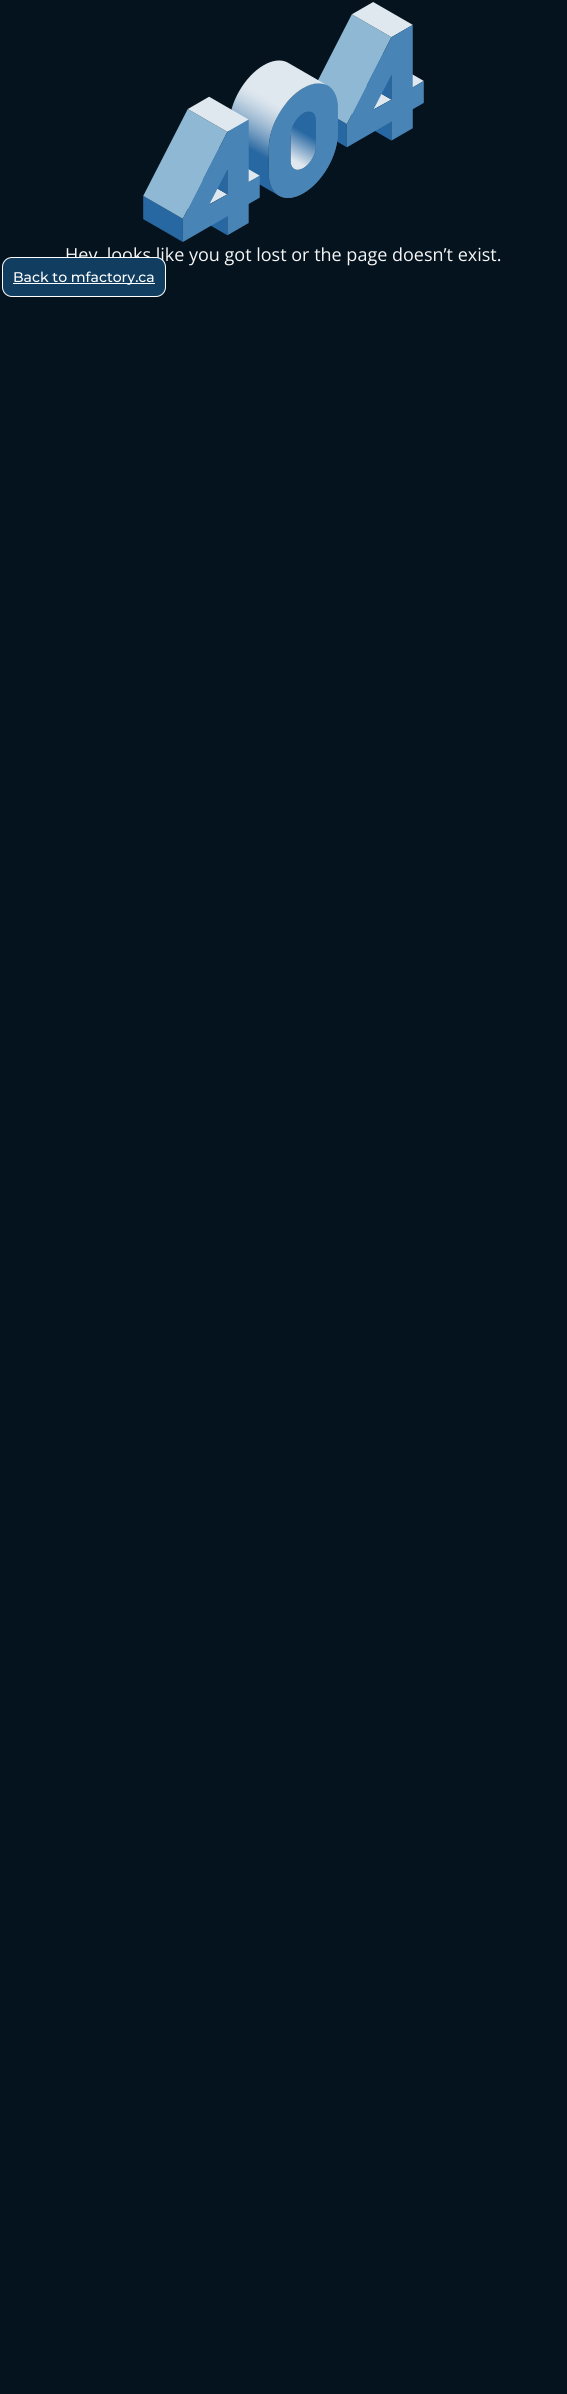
#include <cairo/cairo.h>
#include <math.h>
#include <stddef.h>

static cairo_t *cr;

static void rgb(unsigned color)
{
	cairo_set_source_rgb(cr, (color >> 16) / 255.0, (color >> 8 & 255) / 255.0, (color & 255) / 255.0);
}

static void rrect(double x, double y, double w, double h, double r)
{
	cairo_new_sub_path(cr);
	cairo_arc(cr, x + w - r, y + h - r, r, 0, M_PI / 2);
	cairo_arc(cr, x + r, y + h - r, r, M_PI / 2, M_PI);
	cairo_arc(cr, x + r, y + r, r, M_PI, 1.5 * M_PI);
	cairo_arc(cr, x + w - r, y + r, r, 1.5 * M_PI, 2 * M_PI);
	cairo_close_path(cr);
}

static void image(const char *path, double x, double y, double w, double h)
{
	cairo_surface_t *image = cairo_image_surface_create_from_png(path);
	cairo_save(cr);
	cairo_set_source_surface(cr, image, x, y);
	cairo_rectangle(cr, x, y, w, h);
	cairo_fill(cr);
	cairo_restore(cr);
	cairo_surface_destroy(image);
}

int main(void) {
	cairo_surface_t *surface = cairo_image_surface_create(CAIRO_FORMAT_RGB24, 567, 2394);
	cr = cairo_create(surface);
	cairo_font_options_t *options = cairo_font_options_create();
	cairo_font_options_set_hint_metrics(options, CAIRO_HINT_METRICS_OFF);
	cairo_font_options_set_hint_style(options, CAIRO_HINT_STYLE_NONE);
	cairo_set_font_options(cr, options);
	cairo_set_miter_limit(cr, 4);
	rgb(0x05131e);
	cairo_paint(cr);
	image("img/1.png", 143, 2, 281, 240);
	cairo_select_font_face(cr, "Open Sans", CAIRO_FONT_SLANT_NORMAL, CAIRO_FONT_WEIGHT_NORMAL);
	cairo_set_font_size(cr, 18);
	rgb(0xf6f6f6);
	cairo_move_to(cr, 65, 261);
	cairo_show_text(cr, "Hey, looks like you got lost or the page doesn’t exist.");
	rgb(0x103d60);
	rrect(2.5, 257.5, 163, 39, 9.5);
	cairo_fill_preserve(cr);
	rgb(0xffffff);
	cairo_set_line_width(cr, 1);
	cairo_stroke(cr);
	cairo_rectangle(cr, 13, 283, 142, 1);
	cairo_fill(cr);
	cairo_select_font_face(cr, "Montserrat Medium", CAIRO_FONT_SLANT_NORMAL, CAIRO_FONT_WEIGHT_NORMAL);
	cairo_set_font_size(cr, 14);
	cairo_move_to(cr, 13, 282);
	cairo_show_text(cr, "Back to mfactory.ca");
	cairo_surface_write_to_png(surface, "page.png");
	cairo_font_options_destroy(options);
	cairo_destroy(cr);
	cairo_surface_destroy(surface);
	return 0;
}
